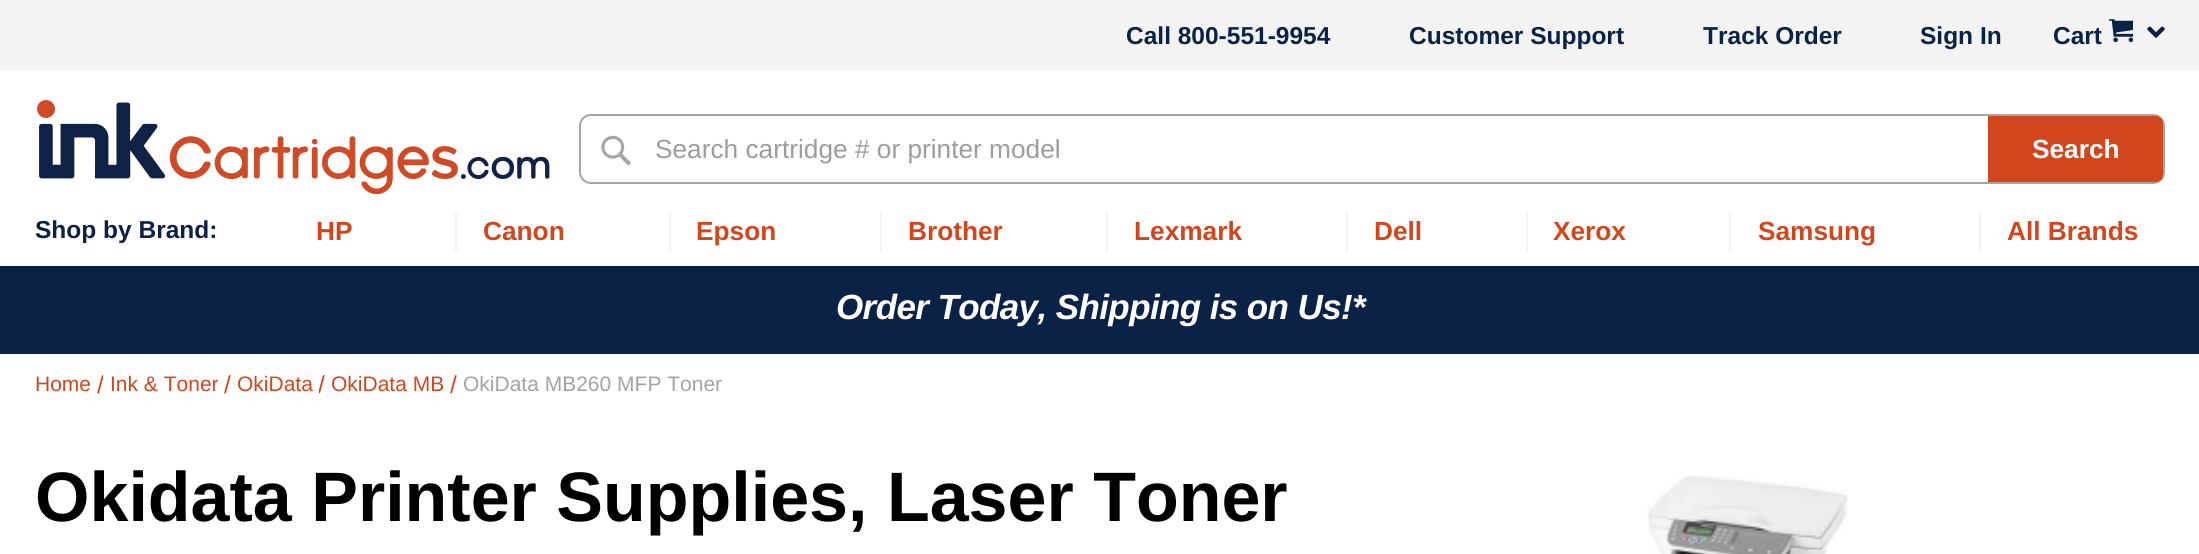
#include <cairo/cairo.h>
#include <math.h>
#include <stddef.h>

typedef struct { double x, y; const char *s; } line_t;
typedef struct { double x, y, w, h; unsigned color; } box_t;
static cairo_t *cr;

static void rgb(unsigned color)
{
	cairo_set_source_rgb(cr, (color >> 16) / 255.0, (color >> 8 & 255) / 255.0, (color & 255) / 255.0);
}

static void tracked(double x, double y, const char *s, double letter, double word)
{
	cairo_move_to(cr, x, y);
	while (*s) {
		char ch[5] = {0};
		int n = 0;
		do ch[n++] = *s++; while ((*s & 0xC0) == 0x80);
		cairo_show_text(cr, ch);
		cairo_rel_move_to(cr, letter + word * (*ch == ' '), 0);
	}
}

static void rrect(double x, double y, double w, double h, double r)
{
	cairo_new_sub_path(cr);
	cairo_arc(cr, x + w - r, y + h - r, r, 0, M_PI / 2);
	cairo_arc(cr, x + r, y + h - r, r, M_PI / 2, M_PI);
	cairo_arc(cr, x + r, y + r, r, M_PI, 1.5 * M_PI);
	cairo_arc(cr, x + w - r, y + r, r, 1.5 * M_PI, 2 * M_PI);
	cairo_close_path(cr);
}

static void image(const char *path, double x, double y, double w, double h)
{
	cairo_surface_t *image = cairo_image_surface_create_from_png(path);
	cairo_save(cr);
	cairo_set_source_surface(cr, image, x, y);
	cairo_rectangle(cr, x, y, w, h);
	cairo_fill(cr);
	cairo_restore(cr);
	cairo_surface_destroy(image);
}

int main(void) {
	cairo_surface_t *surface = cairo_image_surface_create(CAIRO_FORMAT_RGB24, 2199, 554);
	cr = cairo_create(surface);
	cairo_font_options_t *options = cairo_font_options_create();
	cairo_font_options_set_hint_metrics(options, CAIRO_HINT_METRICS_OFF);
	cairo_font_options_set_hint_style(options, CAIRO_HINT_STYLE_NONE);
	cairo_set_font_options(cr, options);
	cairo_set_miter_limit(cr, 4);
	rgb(0xffffff);
	cairo_paint(cr);
	rgb(0xf3f3f3);
	cairo_rectangle(cr, 0, 0, 2199, 70);
	cairo_fill(cr);
	image("img/1.png", 2109, 19, 24, 24);
	image("img/2.png", 2147, 26, 18, 12);
	image("img/3.png", 37, 100, 513, 94);
	rrect(580, 115, 1584, 68, 11);
	rgb(0xa5a5a5);
	cairo_stroke(cr);
	rgb(0xffffff);
	rrect(581, 116, 1582, 66, 12);
	cairo_fill(cr);
	image("img/4.png", 601, 135, 30, 31);
	rgb(0xd1461c);
	cairo_new_path(cr);
	cairo_move_to(cr, 1988, 116);
	cairo_line_to(cr, 2156, 116);
	cairo_curve_to(cr, 2160, 116, 2163, 119, 2163, 123);
	cairo_line_to(cr, 2163, 175);
	cairo_curve_to(cr, 2163, 179, 2160, 182, 2156, 182);
	cairo_line_to(cr, 1988, 182);
	cairo_close_path(cr);
	cairo_fill(cr);
	{
		static const box_t items[] = {
			{455, 212, 2, 40, 0xf3f3f3},
			{669, 212, 2, 40, 0xf3f3f3},
			{880, 212, 2, 40, 0xf3f3f3},
			{1106, 212, 2, 40, 0xf3f3f3},
			{1346, 212, 2, 40, 0xf3f3f3},
			{1526, 212, 2, 40, 0xf3f3f3},
			{1729, 212, 2, 40, 0xf3f3f3},
			{1979, 212, 2, 40, 0xf3f3f3},
			{0, 266, 2199, 88, 0x0a2246},
		};
		for (size_t i = 0; i < sizeof items / sizeof *items; i++) {
			rgb(items[i].color);
			cairo_rectangle(cr, items[i].x, items[i].y, items[i].w, items[i].h);
			cairo_fill(cr);
		}
	}
	image("img/5.png", 1647, 475, 201, 79);
	cairo_select_font_face(cr, "Liberation Sans", CAIRO_FONT_SLANT_NORMAL, CAIRO_FONT_WEIGHT_BOLD);
	cairo_set_font_size(cr, 24.5);
	{
		static const line_t items[] = {
			{1126, 44, "Call 800-551-9954"},
			{1409, 44, "Customer Support"},
			{1703, 44, "Track Order"},
			{1920, 44, "Sign In"},
			{2053, 44, "Cart"},
		};
		for (size_t i = 0; i < sizeof items / sizeof *items; i++) {
			cairo_move_to(cr, items[i].x, items[i].y);
			cairo_show_text(cr, items[i].s);
		}
	}
	cairo_select_font_face(cr, "Liberation Sans", CAIRO_FONT_SLANT_NORMAL, CAIRO_FONT_WEIGHT_NORMAL);
	cairo_set_font_size(cr, 26.25);
	rgb(0x9c9c9c);
	cairo_move_to(cr, 655, 158);
	cairo_show_text(cr, "Search cartridge # or printer model");
	cairo_select_font_face(cr, "Liberation Sans", CAIRO_FONT_SLANT_NORMAL, CAIRO_FONT_WEIGHT_BOLD);
	rgb(0xffffff);
	cairo_move_to(cr, 2032, 158);
	cairo_show_text(cr, "Search");
	cairo_set_font_size(cr, 24.5);
	rgb(0x0a2246);
	cairo_move_to(cr, 35, 238);
	cairo_show_text(cr, "Shop by Brand:");
	cairo_set_font_size(cr, 26.25);
	rgb(0xd1461c);
	{
		static const line_t items[] = {
			{316, 240, "HP"},
			{483, 240, "Canon"},
			{696, 240, "Epson"},
			{908, 240, "Brother"},
			{1134, 240, "Lexmark"},
			{1374, 240, "Dell"},
			{1553, 240, "Xerox"},
			{1758, 240, "Samsung"},
			{2007, 240, "All Brands"},
		};
		for (size_t i = 0; i < sizeof items / sizeof *items; i++) {
			cairo_move_to(cr, items[i].x, items[i].y);
			cairo_show_text(cr, items[i].s);
		}
	}
	cairo_select_font_face(cr, "Liberation Sans", CAIRO_FONT_SLANT_ITALIC, CAIRO_FONT_WEIGHT_BOLD);
	cairo_set_font_size(cr, 35);
	rgb(0xffffff);
	tracked(836, 319, "Order Today, Shipping is on Us!*", -0.6, 0);
	cairo_select_font_face(cr, "Liberation Sans", CAIRO_FONT_SLANT_NORMAL, CAIRO_FONT_WEIGHT_NORMAL);
	cairo_set_font_size(cr, 21);
	rgb(0xd1461c);
	cairo_move_to(cr, 35, 391);
	cairo_show_text(cr, "Home");
	cairo_save(cr);
	cairo_rectangle(cr, 96, 371, 7, 28);
	cairo_clip(cr);
	cairo_set_font_size(cr, 24.5);
	cairo_move_to(cr, 97, 393);
	cairo_show_text(cr, "/");
	cairo_restore(cr);
	cairo_move_to(cr, 110, 391);
	cairo_show_text(cr, "Ink & Toner");
	cairo_set_font_size(cr, 24.5);
	cairo_move_to(cr, 224, 393);
	cairo_show_text(cr, "/");
	cairo_set_font_size(cr, 21);
	cairo_move_to(cr, 237, 391);
	cairo_show_text(cr, "OkiData");
	cairo_save(cr);
	cairo_rectangle(cr, 319, 371, 7, 28);
	cairo_clip(cr);
	cairo_set_font_size(cr, 24.5);
	cairo_move_to(cr, 318, 393);
	cairo_show_text(cr, "/");
	cairo_restore(cr);
	cairo_move_to(cr, 331, 391);
	cairo_show_text(cr, "OkiData MB");
	cairo_set_font_size(cr, 24.5);
	cairo_move_to(cr, 450, 393);
	cairo_show_text(cr, "/");
	cairo_set_font_size(cr, 21);
	rgb(0xa3a3a3);
	cairo_move_to(cr, 463, 391);
	cairo_show_text(cr, "OkiData MB260 MFP Toner");
	cairo_select_font_face(cr, "Liberation Sans", CAIRO_FONT_SLANT_NORMAL, CAIRO_FONT_WEIGHT_BOLD);
	cairo_set_font_size(cr, 70);
	rgb(0x000000);
	cairo_move_to(cr, 35, 521);
	cairo_show_text(cr, "Okidata Printer Supplies, Laser Toner");
	cairo_surface_write_to_png(surface, "page.png");
	cairo_font_options_destroy(options);
	cairo_destroy(cr);
	cairo_surface_destroy(surface);
	return 0;
}
